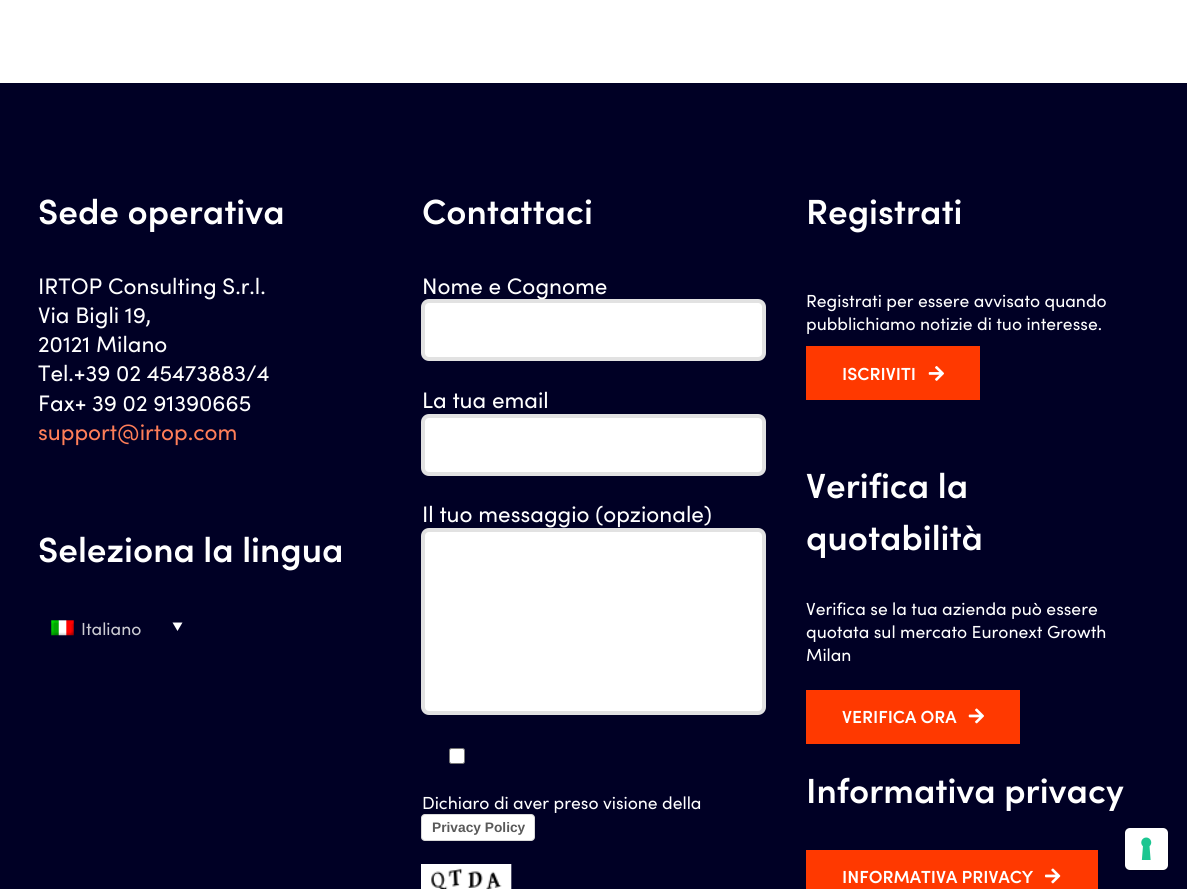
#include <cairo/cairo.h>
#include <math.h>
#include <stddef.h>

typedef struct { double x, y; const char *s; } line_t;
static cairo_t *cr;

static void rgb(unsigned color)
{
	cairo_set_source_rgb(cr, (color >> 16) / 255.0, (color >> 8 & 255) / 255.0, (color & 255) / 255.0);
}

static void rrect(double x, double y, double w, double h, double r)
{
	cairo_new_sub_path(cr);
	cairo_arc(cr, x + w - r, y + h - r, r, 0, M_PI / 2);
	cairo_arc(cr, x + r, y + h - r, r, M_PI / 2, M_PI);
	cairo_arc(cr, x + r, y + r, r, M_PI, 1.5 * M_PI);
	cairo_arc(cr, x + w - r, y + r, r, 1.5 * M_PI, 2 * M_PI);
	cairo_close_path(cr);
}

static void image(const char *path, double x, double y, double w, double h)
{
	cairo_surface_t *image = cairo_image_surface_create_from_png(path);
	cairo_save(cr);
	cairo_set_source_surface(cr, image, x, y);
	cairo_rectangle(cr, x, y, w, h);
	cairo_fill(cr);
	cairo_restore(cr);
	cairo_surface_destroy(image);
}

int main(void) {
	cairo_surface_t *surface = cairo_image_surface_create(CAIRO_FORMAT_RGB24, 1187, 889);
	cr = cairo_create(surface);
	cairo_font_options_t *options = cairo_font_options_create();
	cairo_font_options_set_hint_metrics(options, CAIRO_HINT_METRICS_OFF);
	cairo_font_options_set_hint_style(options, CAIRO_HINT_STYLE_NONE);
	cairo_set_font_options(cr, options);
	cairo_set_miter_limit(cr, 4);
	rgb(0xffffff);
	cairo_paint(cr);
	rgb(0x000025);
	cairo_rectangle(cr, 0, 83, 1187, 806);
	cairo_fill(cr);
	image("img/1.png", 51, 620, 23, 16);
	rgb(0xffffff);
	cairo_new_path(cr);
	cairo_move_to(cr, 172.5, 622.5);
	cairo_line_to(cr, 182.5, 622.5);
	cairo_line_to(cr, 177.5, 631);
	cairo_close_path(cr);
	cairo_fill(cr);
	rrect(423, 301, 341, 58, 6);
	cairo_fill_preserve(cr);
	rgb(0xe2e2e2);
	cairo_set_line_width(cr, 4);
	cairo_stroke(cr);
	rgb(0xffffff);
	rrect(423, 416, 341, 58, 6);
	cairo_fill_preserve(cr);
	rgb(0xe2e2e2);
	cairo_stroke(cr);
	rgb(0xffffff);
	rrect(423, 530, 341, 183, 6);
	cairo_fill_preserve(cr);
	rgb(0xe2e2e2);
	cairo_stroke(cr);
	rgb(0xffffff);
	rrect(449.5, 748.5, 15, 15, 2);
	cairo_fill_preserve(cr);
	rgb(0x767676);
	cairo_set_line_width(cr, 1);
	cairo_stroke(cr);
	rgb(0xffffff);
	rrect(421, 814, 114, 27, 4);
	cairo_fill(cr);
	rrect(421.5, 814.5, 113, 26, 3.5);
	cairo_set_source_rgba(cr, 0, 0, 0, 0.15);
	cairo_stroke(cr);
	image("img/2.png", 421, 864, 91, 25);
	rgb(0xff3900);
	cairo_rectangle(cr, 806, 346, 174, 54);
	cairo_fill(cr);
	image("img/3.png", 928, 366, 16, 15);
	cairo_rectangle(cr, 806, 690, 214, 54);
	cairo_fill(cr);
	image("img/4.png", 968, 708, 16, 16);
	cairo_rectangle(cr, 806, 850, 292, 39);
	cairo_fill(cr);
	image("img/5.png", 1045, 868, 16, 16);
	rrect(1124.5, 826.5, 44, 44, 5.5);
	rgb(0x00001f);
	cairo_stroke(cr);
	rgb(0xffffff);
	rrect(1125, 828, 43, 42, 5);
	cairo_fill(cr);
	image("img/6.png", 1141, 837, 11, 23);
	cairo_select_font_face(cr, "Sofia SemiBold", CAIRO_FONT_SLANT_NORMAL, CAIRO_FONT_WEIGHT_NORMAL);
	cairo_set_font_size(cr, 35);
	cairo_move_to(cr, 38, 224);
	cairo_show_text(cr, "Sede operativa");
	cairo_select_font_face(cr, "Sofia", CAIRO_FONT_SLANT_NORMAL, CAIRO_FONT_WEIGHT_NORMAL);
	cairo_set_font_size(cr, 22.5);
	{
		static const line_t items[] = {
			{38, 294, "IRTOP Consulting S.r.l."},
			{38, 323, "Via Bigli 19,"},
			{38, 352, "20121 Milano"},
			{38, 381, "Tel.+39 02 45473883/4"},
			{38, 411, "Fax+ 39 02 91390665"},
		};
		for (size_t i = 0; i < sizeof items / sizeof *items; i++) {
			cairo_move_to(cr, items[i].x, items[i].y);
			cairo_show_text(cr, items[i].s);
		}
	}
	rgb(0xff7e58);
	cairo_move_to(cr, 38, 440);
	cairo_show_text(cr, "support@irtop.com");
	cairo_select_font_face(cr, "Sofia SemiBold", CAIRO_FONT_SLANT_NORMAL, CAIRO_FONT_WEIGHT_NORMAL);
	cairo_set_font_size(cr, 35);
	rgb(0xffffff);
	cairo_move_to(cr, 38, 562);
	cairo_show_text(cr, "Seleziona la lingua");
	cairo_select_font_face(cr, "Sofia", CAIRO_FONT_SLANT_NORMAL, CAIRO_FONT_WEIGHT_NORMAL);
	cairo_set_font_size(cr, 17.5);
	rgb(0xccccd3);
	cairo_move_to(cr, 81, 635);
	cairo_show_text(cr, "Italiano");
	cairo_select_font_face(cr, "Sofia SemiBold", CAIRO_FONT_SLANT_NORMAL, CAIRO_FONT_WEIGHT_NORMAL);
	cairo_set_font_size(cr, 35);
	rgb(0xffffff);
	cairo_move_to(cr, 422, 224);
	cairo_show_text(cr, "Contattaci");
	cairo_select_font_face(cr, "Sofia", CAIRO_FONT_SLANT_NORMAL, CAIRO_FONT_WEIGHT_NORMAL);
	cairo_set_font_size(cr, 22.5);
	{
		static const line_t items[] = {
			{422, 294, "Nome e Cognome"},
			{422, 408, "La tua email"},
			{422, 522, "Il tuo messaggio (opzionale)"},
		};
		for (size_t i = 0; i < sizeof items / sizeof *items; i++) {
			cairo_move_to(cr, items[i].x, items[i].y);
			cairo_show_text(cr, items[i].s);
		}
	}
	cairo_set_font_size(cr, 17.5);
	cairo_move_to(cr, 422, 809);
	cairo_show_text(cr, "Dichiaro di aver preso visione della");
	cairo_select_font_face(cr, "Liberation Sans", CAIRO_FONT_SLANT_NORMAL, CAIRO_FONT_WEIGHT_BOLD);
	cairo_set_font_size(cr, 13.75);
	rgb(0x595959);
	cairo_move_to(cr, 432, 832);
	cairo_show_text(cr, "Privacy Policy");
	cairo_select_font_face(cr, "Sofia SemiBold", CAIRO_FONT_SLANT_NORMAL, CAIRO_FONT_WEIGHT_NORMAL);
	cairo_set_font_size(cr, 35);
	rgb(0xffffff);
	cairo_move_to(cr, 806, 224);
	cairo_show_text(cr, "Registrati");
	cairo_select_font_face(cr, "Sofia", CAIRO_FONT_SLANT_NORMAL, CAIRO_FONT_WEIGHT_NORMAL);
	cairo_set_font_size(cr, 17.5);
	cairo_move_to(cr, 806, 307);
	cairo_show_text(cr, "Registrati per essere avvisato quando");
	cairo_move_to(cr, 806, 330);
	cairo_show_text(cr, "pubblichiamo notizie di tuo interesse.");
	cairo_select_font_face(cr, "Sofia SemiBold", CAIRO_FONT_SLANT_NORMAL, CAIRO_FONT_WEIGHT_NORMAL);
	cairo_move_to(cr, 842, 380);
	cairo_show_text(cr, "ISCRIVITI");
	cairo_set_font_size(cr, 35);
	cairo_move_to(cr, 806, 498);
	cairo_show_text(cr, "Verifica la");
	cairo_move_to(cr, 806, 550);
	cairo_show_text(cr, "quotabilità");
	cairo_select_font_face(cr, "Sofia", CAIRO_FONT_SLANT_NORMAL, CAIRO_FONT_WEIGHT_NORMAL);
	cairo_set_font_size(cr, 17.5);
	{
		static const line_t items[] = {
			{806, 615, "Verifica se la tua azienda può essere"},
			{806, 638, "quotata sul mercato Euronext Growth"},
			{806, 661, "Milan"},
		};
		for (size_t i = 0; i < sizeof items / sizeof *items; i++) {
			cairo_move_to(cr, items[i].x, items[i].y);
			cairo_show_text(cr, items[i].s);
		}
	}
	cairo_select_font_face(cr, "Sofia SemiBold", CAIRO_FONT_SLANT_NORMAL, CAIRO_FONT_WEIGHT_NORMAL);
	cairo_move_to(cr, 842, 723);
	cairo_show_text(cr, "VERIFICA ORA");
	cairo_set_font_size(cr, 35);
	cairo_move_to(cr, 806, 803);
	cairo_show_text(cr, "Informativa privacy");
	cairo_set_font_size(cr, 17.5);
	cairo_move_to(cr, 842, 883);
	cairo_show_text(cr, "INFORMATIVA PRIVACY");
	cairo_surface_write_to_png(surface, "page.png");
	cairo_font_options_destroy(options);
	cairo_destroy(cr);
	cairo_surface_destroy(surface);
	return 0;
}
